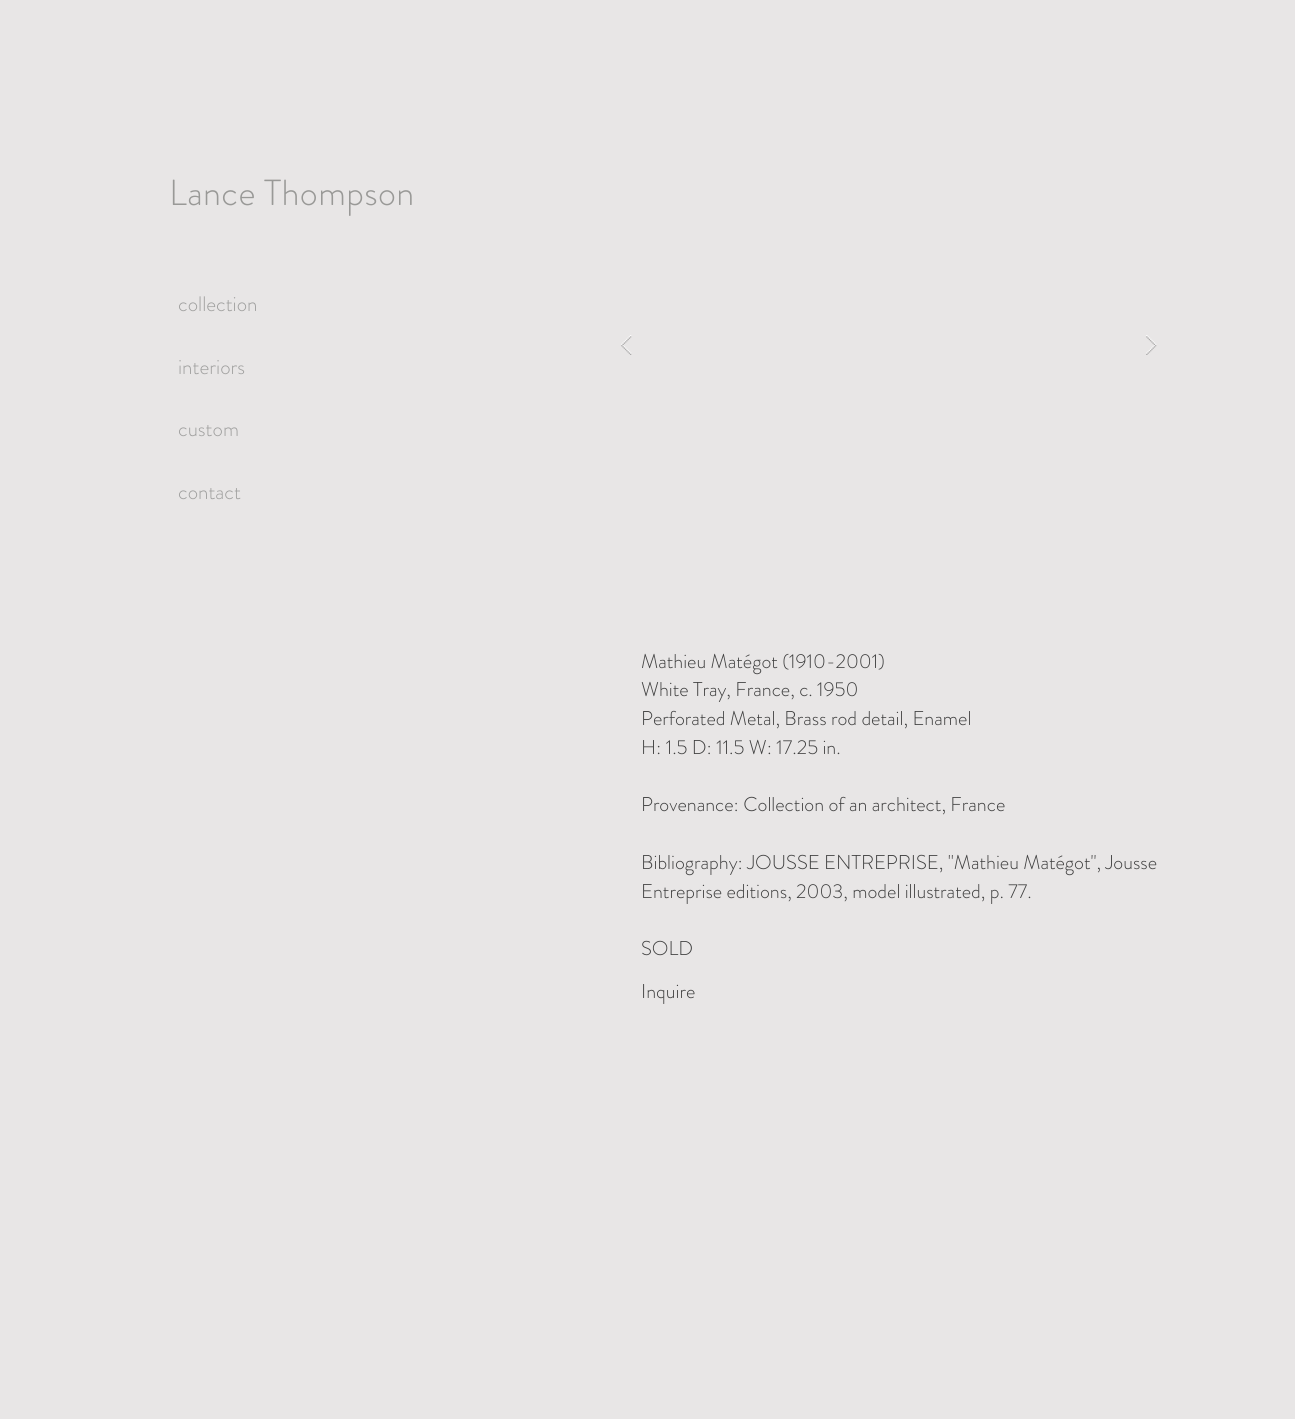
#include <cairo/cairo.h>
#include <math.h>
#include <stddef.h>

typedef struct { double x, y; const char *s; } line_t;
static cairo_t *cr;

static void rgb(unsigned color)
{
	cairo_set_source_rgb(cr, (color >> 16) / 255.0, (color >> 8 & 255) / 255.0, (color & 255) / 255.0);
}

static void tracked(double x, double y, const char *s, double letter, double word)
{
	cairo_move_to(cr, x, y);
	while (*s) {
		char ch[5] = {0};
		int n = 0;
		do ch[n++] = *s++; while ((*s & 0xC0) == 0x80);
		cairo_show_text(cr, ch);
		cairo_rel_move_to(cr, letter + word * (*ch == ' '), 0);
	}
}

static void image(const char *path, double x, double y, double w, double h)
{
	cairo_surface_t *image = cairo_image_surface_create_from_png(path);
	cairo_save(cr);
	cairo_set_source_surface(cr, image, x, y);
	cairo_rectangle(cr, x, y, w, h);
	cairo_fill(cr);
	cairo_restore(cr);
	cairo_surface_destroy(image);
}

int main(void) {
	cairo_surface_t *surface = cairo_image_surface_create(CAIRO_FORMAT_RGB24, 1295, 1419);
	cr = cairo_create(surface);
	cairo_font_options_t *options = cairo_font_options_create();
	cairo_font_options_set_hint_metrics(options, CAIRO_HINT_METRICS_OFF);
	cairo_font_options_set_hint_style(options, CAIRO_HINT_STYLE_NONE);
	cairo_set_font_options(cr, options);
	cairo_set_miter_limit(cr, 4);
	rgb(0xe8e6e6);
	cairo_paint(cr);
	image("img/1.png", 621, 335, 11, 20);
	image("img/2.png", 1146, 335, 11, 20);
	cairo_select_font_face(cr, "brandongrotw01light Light", CAIRO_FONT_SLANT_NORMAL, CAIRO_FONT_WEIGHT_NORMAL);
	cairo_set_font_size(cr, 36.25);
	rgb(0x999997);
	tracked(169, 205, "Lance Thompson", 0.4, 0);
	cairo_set_font_size(cr, 21);
	rgb(0xa0a09f);
	{
		static const line_t items[] = {
			{178, 311, "collection"},
			{178, 374, "interiors"},
			{178, 436, "custom"},
			{178, 499, "contact"},
		};
		for (size_t i = 0; i < sizeof items / sizeof *items; i++) {
			cairo_move_to(cr, items[i].x, items[i].y);
			cairo_show_text(cr, items[i].s);
		}
	}
	cairo_set_font_size(cr, 20);
	rgb(0x414141);
	{
		static const line_t items[] = {
			{641, 668, "Mathieu Matégot (1910-2001)"},
			{641, 696, "White Tray, France, c. 1950"},
			{641, 725, "Perforated Metal, Brass rod detail, Enamel"},
			{641, 754, "H: 1.5 D: 11.5 W: 17.25 in."},
			{641, 811, "Provenance: Collection of an architect, France"},
			{641, 869, "Bibliography: JOUSSE ENTREPRISE, \"Mathieu Matégot\", Jousse"},
			{641, 898, "Entreprise editions, 2003, model illustrated, p. 77."},
			{641, 955, "SOLD"},
			{641, 998, "Inquire"},
		};
		for (size_t i = 0; i < sizeof items / sizeof *items; i++) {
			cairo_move_to(cr, items[i].x, items[i].y);
			cairo_show_text(cr, items[i].s);
		}
	}
	cairo_surface_write_to_png(surface, "page.png");
	cairo_font_options_destroy(options);
	cairo_destroy(cr);
	cairo_surface_destroy(surface);
	return 0;
}
